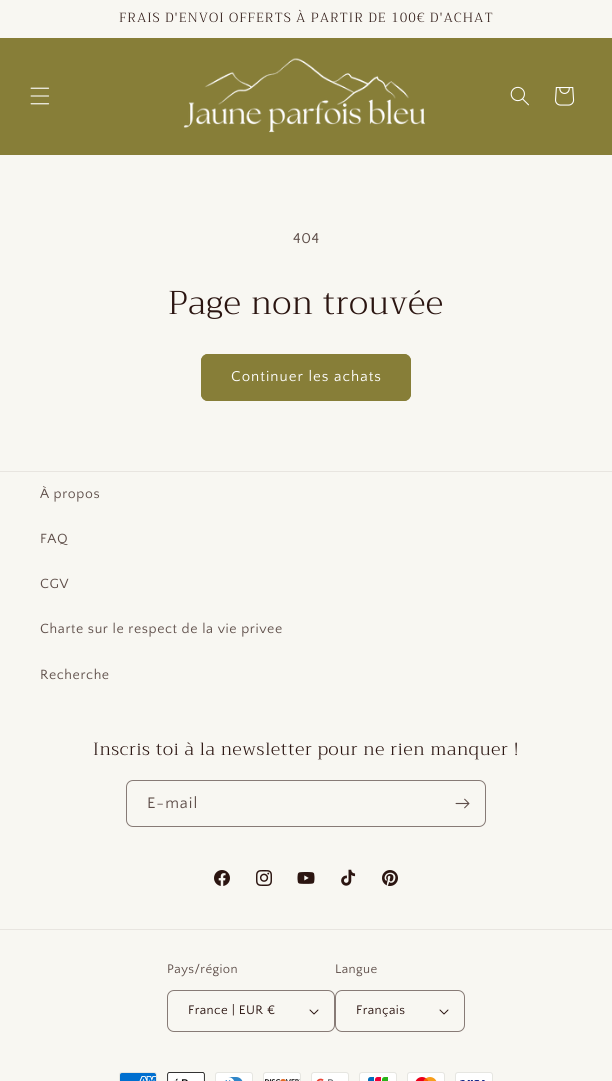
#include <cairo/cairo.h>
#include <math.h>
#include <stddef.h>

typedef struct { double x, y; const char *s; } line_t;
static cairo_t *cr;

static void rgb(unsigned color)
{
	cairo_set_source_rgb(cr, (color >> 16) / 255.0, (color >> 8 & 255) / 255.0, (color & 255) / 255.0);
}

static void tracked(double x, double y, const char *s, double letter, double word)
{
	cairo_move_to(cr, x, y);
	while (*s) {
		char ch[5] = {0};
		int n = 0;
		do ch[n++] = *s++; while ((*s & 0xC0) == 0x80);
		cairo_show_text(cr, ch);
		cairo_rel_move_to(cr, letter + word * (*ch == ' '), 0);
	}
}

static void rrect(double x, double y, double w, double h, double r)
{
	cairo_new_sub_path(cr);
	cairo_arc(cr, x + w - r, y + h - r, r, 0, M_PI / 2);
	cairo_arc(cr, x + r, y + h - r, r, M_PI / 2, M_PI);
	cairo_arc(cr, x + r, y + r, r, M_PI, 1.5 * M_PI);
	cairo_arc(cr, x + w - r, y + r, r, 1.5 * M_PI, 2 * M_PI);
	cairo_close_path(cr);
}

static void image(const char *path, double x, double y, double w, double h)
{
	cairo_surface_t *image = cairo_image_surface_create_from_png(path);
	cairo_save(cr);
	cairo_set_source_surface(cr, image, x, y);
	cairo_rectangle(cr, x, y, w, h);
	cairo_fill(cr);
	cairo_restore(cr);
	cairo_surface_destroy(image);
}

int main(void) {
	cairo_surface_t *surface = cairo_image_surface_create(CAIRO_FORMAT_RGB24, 612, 1081);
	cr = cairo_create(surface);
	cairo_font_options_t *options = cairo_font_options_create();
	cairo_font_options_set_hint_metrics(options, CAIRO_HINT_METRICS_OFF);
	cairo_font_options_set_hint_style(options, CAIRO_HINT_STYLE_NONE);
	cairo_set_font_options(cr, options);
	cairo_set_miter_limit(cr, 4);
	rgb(0xf8f7f2);
	cairo_paint(cr);
	rgb(0x877e38);
	cairo_rectangle(cr, 0, 38, 612, 117);
	cairo_fill(cr);
	image("img/1.png", 30, 87, 20, 18);
	image("img/2.png", 183, 58, 243, 75);
	image("img/3.png", 510, 86, 19, 20);
	image("img/4.png", 555, 87, 20, 19);
	rrect(201, 354, 210, 47, 7);
	cairo_fill(cr);
	rrect(201.5, 354.5, 209, 46, 6.5);
	cairo_set_line_width(cr, 1);
	cairo_stroke(cr);
	rgb(0xe8e5e0);
	cairo_rectangle(cr, 0, 471, 612, 1);
	cairo_fill(cr);
	rrect(126.5, 780.5, 359, 46, 6.5);
	rgb(0x877b76);
	cairo_stroke(cr);
	image("img/5.png", 455, 798, 15, 11);
	image("img/6.png", 214, 870, 16, 16);
	image("img/7.png", 256, 870, 16, 16);
	image("img/8.png", 297, 872, 18, 12);
	image("img/9.png", 341, 869, 15, 17);
	image("img/10.png", 382, 870, 16, 16);
	rgb(0xe8e5e0);
	cairo_rectangle(cr, 0, 929, 612, 1);
	cairo_fill(cr);
	image("img/11.png", 309, 1009, 10, 6);
	rrect(167.5, 990.5, 167, 41, 6.5);
	rgb(0x877b76);
	cairo_stroke(cr);
	image("img/11.png", 439, 1009, 10, 6);
	rrect(335.5, 990.5, 129, 41, 6.5);
	cairo_stroke(cr);
	image("img/12.png", 119, 1072, 38, 9);
	image("img/13.png", 167, 1072, 38, 9);
	image("img/14.png", 215, 1072, 38, 9);
	image("img/15.png", 263, 1072, 38, 9);
	image("img/16.png", 311, 1072, 38, 9);
	image("img/17.png", 359, 1072, 38, 9);
	image("img/18.png", 407, 1072, 38, 9);
	image("img/19.png", 455, 1072, 38, 9);
	cairo_select_font_face(cr, "Trirong Light", CAIRO_FONT_SLANT_NORMAL, CAIRO_FONT_WEIGHT_NORMAL);
	cairo_set_font_size(cr, 13.2);
	rgb(0x2b1511);
	tracked(119, 22, "FRAIS D'ENVOI OFFERTS À PARTIR DE 100€ D'ACHAT", 1, 0);
	cairo_select_font_face(cr, "Quattrocento Sans", CAIRO_FONT_SLANT_NORMAL, CAIRO_FONT_WEIGHT_NORMAL);
	cairo_set_font_size(cr, 15);
	rgb(0x5e4e49);
	tracked(293, 243, "404", 0.6, 0);
	cairo_select_font_face(cr, "Trirong Light", CAIRO_FONT_SLANT_NORMAL, CAIRO_FONT_WEIGHT_NORMAL);
	cairo_set_font_size(cr, 33);
	rgb(0x2b1511);
	tracked(168, 314, "Page non trouvée", 0.65, 0);
	cairo_select_font_face(cr, "Quattrocento Sans", CAIRO_FONT_SLANT_NORMAL, CAIRO_FONT_WEIGHT_NORMAL);
	cairo_set_font_size(cr, 15);
	rgb(0xffffff);
	tracked(231, 381, "Continuer les achats", 1, 0);
	cairo_set_font_size(cr, 14);
	rgb(0x5e4e49);
	{
		static const line_t items[] = {
			{40, 498, "À propos"},
			{40, 543, "FAQ"},
			{40, 588, "CGV"},
			{40, 633, "Charte sur le respect de la vie privee"},
			{40, 679, "Recherche"},
		};
		for (size_t i = 0; i < sizeof items / sizeof *items; i++) {
			tracked(items[i].x, items[i].y, items[i].s, 0.6, 0);
		}
	}
	cairo_select_font_face(cr, "Trirong Light", CAIRO_FONT_SLANT_NORMAL, CAIRO_FONT_WEIGHT_NORMAL);
	cairo_set_font_size(cr, 17.6);
	rgb(0x2b1511);
	tracked(93, 755, "Inscris toi à la newsletter pour ne rien manquer !", 0.65, 0);
	cairo_select_font_face(cr, "Quattrocento Sans", CAIRO_FONT_SLANT_NORMAL, CAIRO_FONT_WEIGHT_NORMAL);
	cairo_set_font_size(cr, 16);
	rgb(0x5e4e49);
	tracked(147, 808, "E-mail", 1, 0);
	cairo_set_font_size(cr, 13);
	tracked(167, 973, "Pays/région", 0.4, 0);
	rgb(0x2b1511);
	tracked(188, 1014, "France | EUR €", 0.4, 0);
	rgb(0x5e4e49);
	tracked(335, 973, "Langue", 0.4, 0);
	rgb(0x2b1511);
	tracked(356, 1014, "Français", 0.4, 0);
	cairo_surface_write_to_png(surface, "page.png");
	cairo_font_options_destroy(options);
	cairo_destroy(cr);
	cairo_surface_destroy(surface);
	return 0;
}
